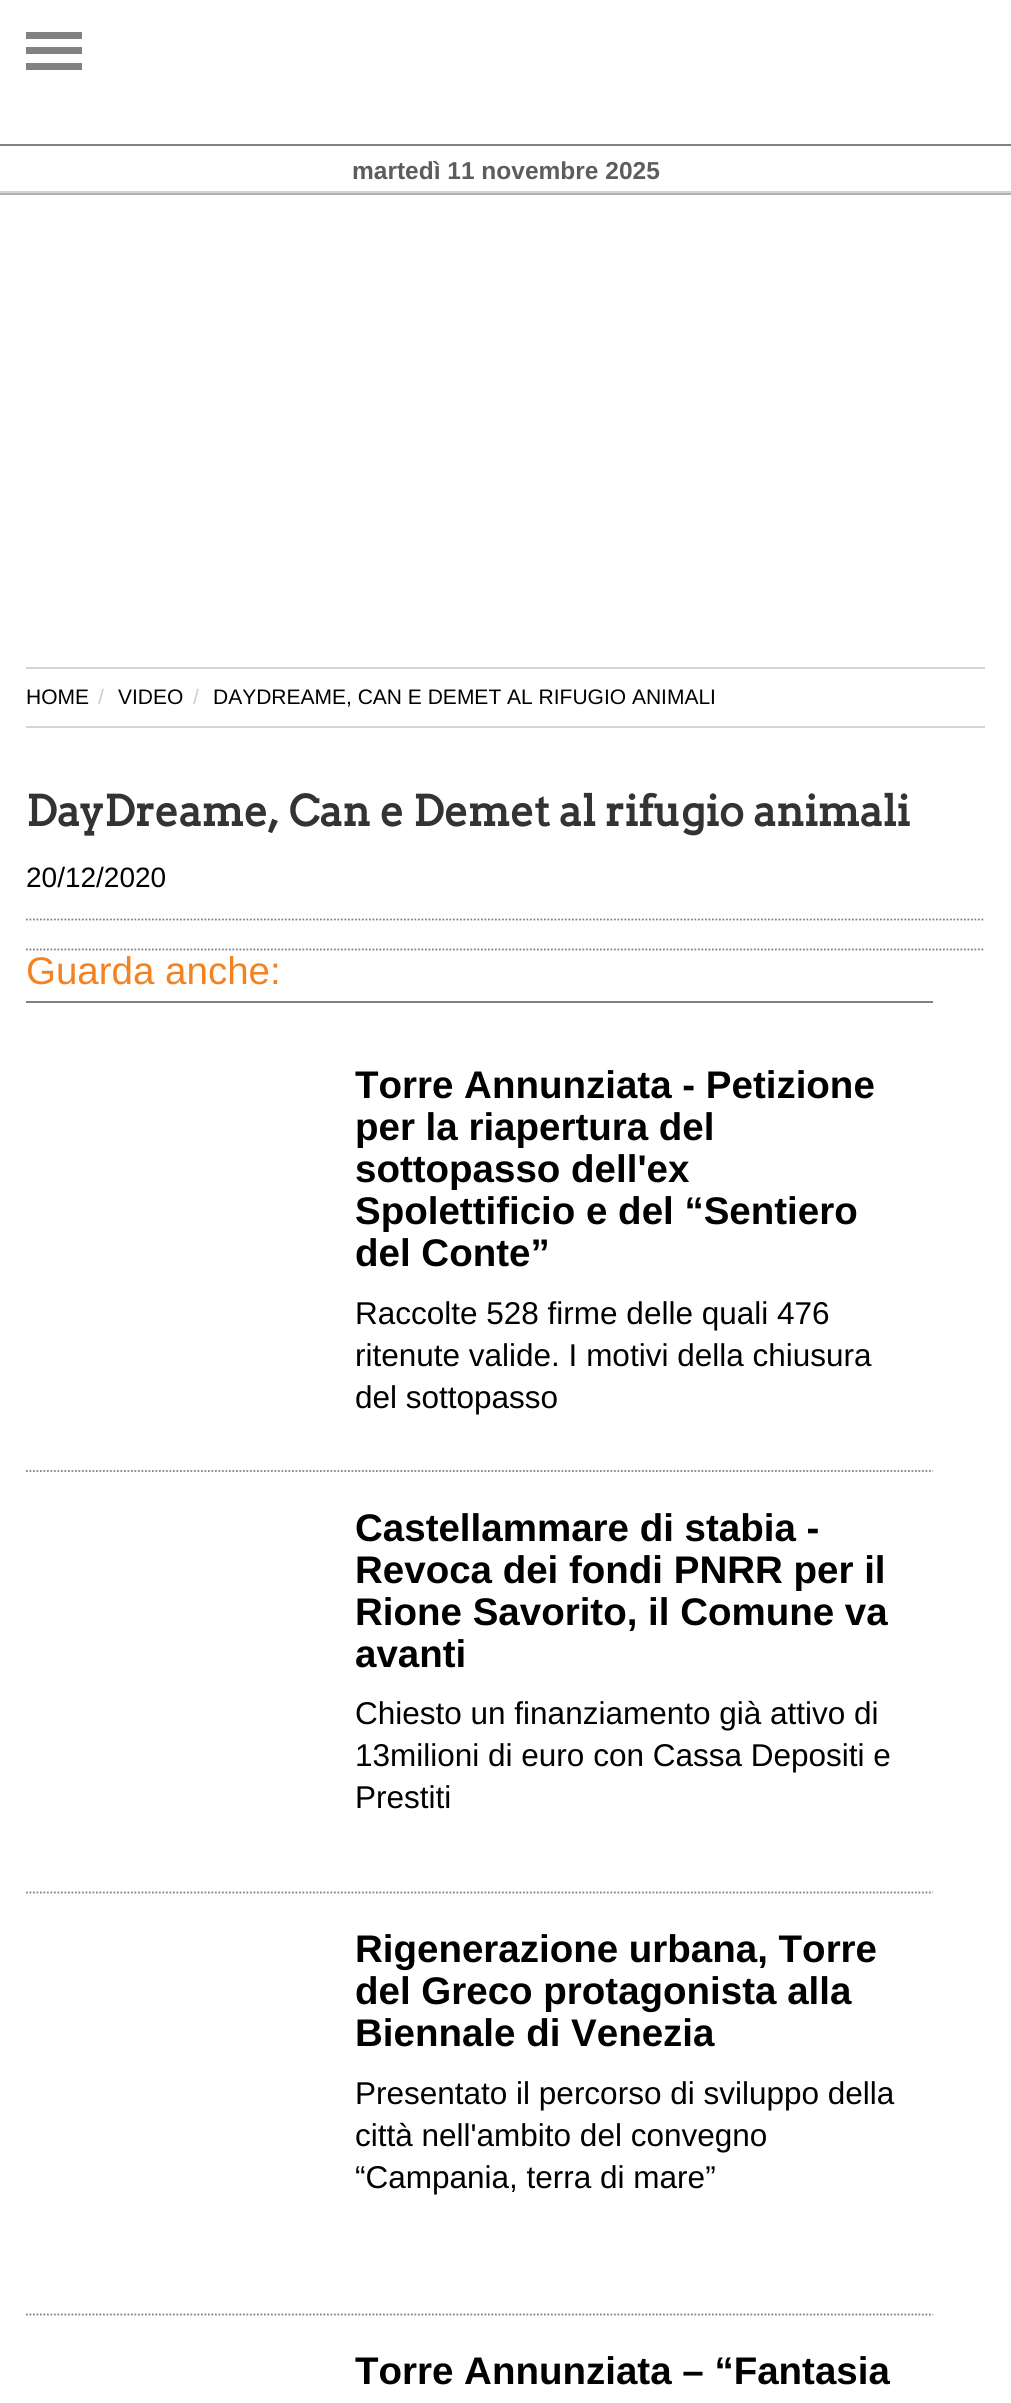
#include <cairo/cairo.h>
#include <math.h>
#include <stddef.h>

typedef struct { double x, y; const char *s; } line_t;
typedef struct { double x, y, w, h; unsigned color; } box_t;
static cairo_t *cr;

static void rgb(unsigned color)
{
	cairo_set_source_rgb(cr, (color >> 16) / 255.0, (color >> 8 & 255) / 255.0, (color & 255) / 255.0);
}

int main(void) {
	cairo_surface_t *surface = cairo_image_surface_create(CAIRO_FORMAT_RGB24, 1011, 2403);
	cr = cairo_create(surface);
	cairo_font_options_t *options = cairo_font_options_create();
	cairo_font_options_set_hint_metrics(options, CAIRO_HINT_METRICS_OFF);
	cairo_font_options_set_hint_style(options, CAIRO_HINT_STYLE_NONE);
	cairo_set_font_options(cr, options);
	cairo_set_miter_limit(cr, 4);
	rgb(0xffffff);
	cairo_paint(cr);
	{
		static const box_t items[] = {
			{26, 32, 56, 7, 0x808182},
			{26, 47, 56, 7, 0x808182},
			{26, 63, 56, 7, 0x808182},
			{0, 191, 1011, 2, 0xd4d4d4},
			{0, 144, 1011, 2, 0x808182},
			{0, 193, 1011, 2, 0xaeb0b3},
			{26, 667, 959, 2, 0xd4d4d4},
			{26, 726, 959, 2, 0xd4d4d4},
		};
		for (size_t i = 0; i < sizeof items / sizeof *items; i++) {
			rgb(items[i].color);
			cairo_rectangle(cr, items[i].x, items[i].y, items[i].w, items[i].h);
			cairo_fill(cr);
		}
	}
	cairo_new_path(cr);
	cairo_move_to(cr, 26, 919.5);
	cairo_line_to(cr, 985, 919.5);
	rgb(0x847f7f);
	cairo_set_line_width(cr, 1.8);
	cairo_set_dash(cr, (double[]){1.75, 1.75}, 2, 0);
	cairo_stroke(cr);
	cairo_new_path(cr);
	cairo_move_to(cr, 26, 949.5);
	cairo_line_to(cr, 985, 949.5);
	cairo_stroke(cr);
	rgb(0x808182);
	cairo_rectangle(cr, 26, 1001, 907, 2);
	cairo_fill(cr);
	cairo_new_path(cr);
	cairo_move_to(cr, 26, 1471);
	cairo_line_to(cr, 933, 1471);
	rgb(0x847f7f);
	cairo_stroke(cr);
	cairo_new_path(cr);
	cairo_move_to(cr, 26, 1892.5);
	cairo_line_to(cr, 933, 1892.5);
	cairo_stroke(cr);
	cairo_new_path(cr);
	cairo_move_to(cr, 26, 2314.5);
	cairo_line_to(cr, 933, 2314.5);
	cairo_stroke(cr);
	cairo_select_font_face(cr, "Liberation Sans", CAIRO_FONT_SLANT_NORMAL, CAIRO_FONT_WEIGHT_BOLD);
	cairo_set_font_size(cr, 24.5);
	rgb(0x5e5c5f);
	cairo_move_to(cr, 352, 179);
	cairo_show_text(cr, "martedì 11 novembre 2025");
	cairo_select_font_face(cr, "Liberation Sans", CAIRO_FONT_SLANT_NORMAL, CAIRO_FONT_WEIGHT_NORMAL);
	cairo_set_font_size(cr, 21);
	rgb(0x000000);
	cairo_move_to(cr, 26, 704);
	cairo_show_text(cr, "HOME");
	rgb(0xcccccc);
	cairo_move_to(cr, 98, 704);
	cairo_show_text(cr, "/");
	rgb(0x000000);
	cairo_move_to(cr, 118, 704);
	cairo_show_text(cr, "VIDEO");
	rgb(0xcccccc);
	cairo_move_to(cr, 193, 704);
	cairo_show_text(cr, "/");
	rgb(0x000000);
	cairo_move_to(cr, 213, 704);
	cairo_show_text(cr, "DAYDREAME, CAN E DEMET AL RIFUGIO ANIMALI");
	cairo_select_font_face(cr, "Arvo", CAIRO_FONT_SLANT_NORMAL, CAIRO_FONT_WEIGHT_BOLD);
	cairo_set_font_size(cr, 42);
	rgb(0x333333);
	cairo_move_to(cr, 26, 826);
	cairo_show_text(cr, "DayDreame, Can e Demet al rifugio animali");
	cairo_select_font_face(cr, "Liberation Sans", CAIRO_FONT_SLANT_NORMAL, CAIRO_FONT_WEIGHT_NORMAL);
	cairo_set_font_size(cr, 28);
	rgb(0x000000);
	cairo_move_to(cr, 26, 887);
	cairo_show_text(cr, "20/12/2020");
	cairo_set_font_size(cr, 38.5);
	rgb(0xf58220);
	cairo_move_to(cr, 26, 984);
	cairo_show_text(cr, "Guarda anche:");
	cairo_select_font_face(cr, "Liberation Sans", CAIRO_FONT_SLANT_NORMAL, CAIRO_FONT_WEIGHT_BOLD);
	rgb(0x000000);
	{
		static const line_t items[] = {
			{355, 1098, "Torre Annunziata - Petizione"},
			{355, 1140, "per la riapertura del"},
			{355, 1182, "sottopasso dell'ex"},
			{355, 1224, "Spolettificio e del “Sentiero"},
			{355, 1266, "del Conte”"},
		};
		for (size_t i = 0; i < sizeof items / sizeof *items; i++) {
			cairo_move_to(cr, items[i].x, items[i].y);
			cairo_show_text(cr, items[i].s);
		}
	}
	cairo_select_font_face(cr, "Liberation Sans", CAIRO_FONT_SLANT_NORMAL, CAIRO_FONT_WEIGHT_NORMAL);
	cairo_set_font_size(cr, 31.5);
	{
		static const line_t items[] = {
			{355, 1324, "Raccolte 528 firme delle quali 476"},
			{355, 1366, "ritenute valide. I motivi della chiusura"},
			{355, 1408, "del sottopasso"},
		};
		for (size_t i = 0; i < sizeof items / sizeof *items; i++) {
			cairo_move_to(cr, items[i].x, items[i].y);
			cairo_show_text(cr, items[i].s);
		}
	}
	cairo_select_font_face(cr, "Liberation Sans", CAIRO_FONT_SLANT_NORMAL, CAIRO_FONT_WEIGHT_BOLD);
	cairo_set_font_size(cr, 38.5);
	{
		static const line_t items[] = {
			{355, 1541, "Castellammare di stabia -"},
			{355, 1583, "Revoca dei fondi PNRR per il"},
			{355, 1625, "Rione Savorito, il Comune va"},
			{355, 1667, "avanti"},
		};
		for (size_t i = 0; i < sizeof items / sizeof *items; i++) {
			cairo_move_to(cr, items[i].x, items[i].y);
			cairo_show_text(cr, items[i].s);
		}
	}
	cairo_select_font_face(cr, "Liberation Sans", CAIRO_FONT_SLANT_NORMAL, CAIRO_FONT_WEIGHT_NORMAL);
	cairo_set_font_size(cr, 31.5);
	{
		static const line_t items[] = {
			{355, 1724, "Chiesto un finanziamento già attivo di"},
			{355, 1766, "13milioni di euro con Cassa Depositi e"},
			{355, 1808, "Prestiti"},
		};
		for (size_t i = 0; i < sizeof items / sizeof *items; i++) {
			cairo_move_to(cr, items[i].x, items[i].y);
			cairo_show_text(cr, items[i].s);
		}
	}
	cairo_select_font_face(cr, "Liberation Sans", CAIRO_FONT_SLANT_NORMAL, CAIRO_FONT_WEIGHT_BOLD);
	cairo_set_font_size(cr, 38.5);
	{
		static const line_t items[] = {
			{355, 1962, "Rigenerazione urbana, Torre"},
			{355, 2004, "del Greco protagonista alla"},
			{355, 2046, "Biennale di Venezia"},
		};
		for (size_t i = 0; i < sizeof items / sizeof *items; i++) {
			cairo_move_to(cr, items[i].x, items[i].y);
			cairo_show_text(cr, items[i].s);
		}
	}
	cairo_select_font_face(cr, "Liberation Sans", CAIRO_FONT_SLANT_NORMAL, CAIRO_FONT_WEIGHT_NORMAL);
	cairo_set_font_size(cr, 31.5);
	{
		static const line_t items[] = {
			{355, 2104, "Presentato il percorso di sviluppo della"},
			{355, 2146, "città nell'ambito del convegno"},
			{355, 2188, "“Campania, terra di mare”"},
		};
		for (size_t i = 0; i < sizeof items / sizeof *items; i++) {
			cairo_move_to(cr, items[i].x, items[i].y);
			cairo_show_text(cr, items[i].s);
		}
	}
	cairo_select_font_face(cr, "Liberation Sans", CAIRO_FONT_SLANT_NORMAL, CAIRO_FONT_WEIGHT_BOLD);
	cairo_set_font_size(cr, 38.5);
	cairo_move_to(cr, 355, 2384);
	cairo_show_text(cr, "Torre Annunziata – “Fantasia");
	cairo_surface_write_to_png(surface, "page.png");
	cairo_font_options_destroy(options);
	cairo_destroy(cr);
	cairo_surface_destroy(surface);
	return 0;
}
